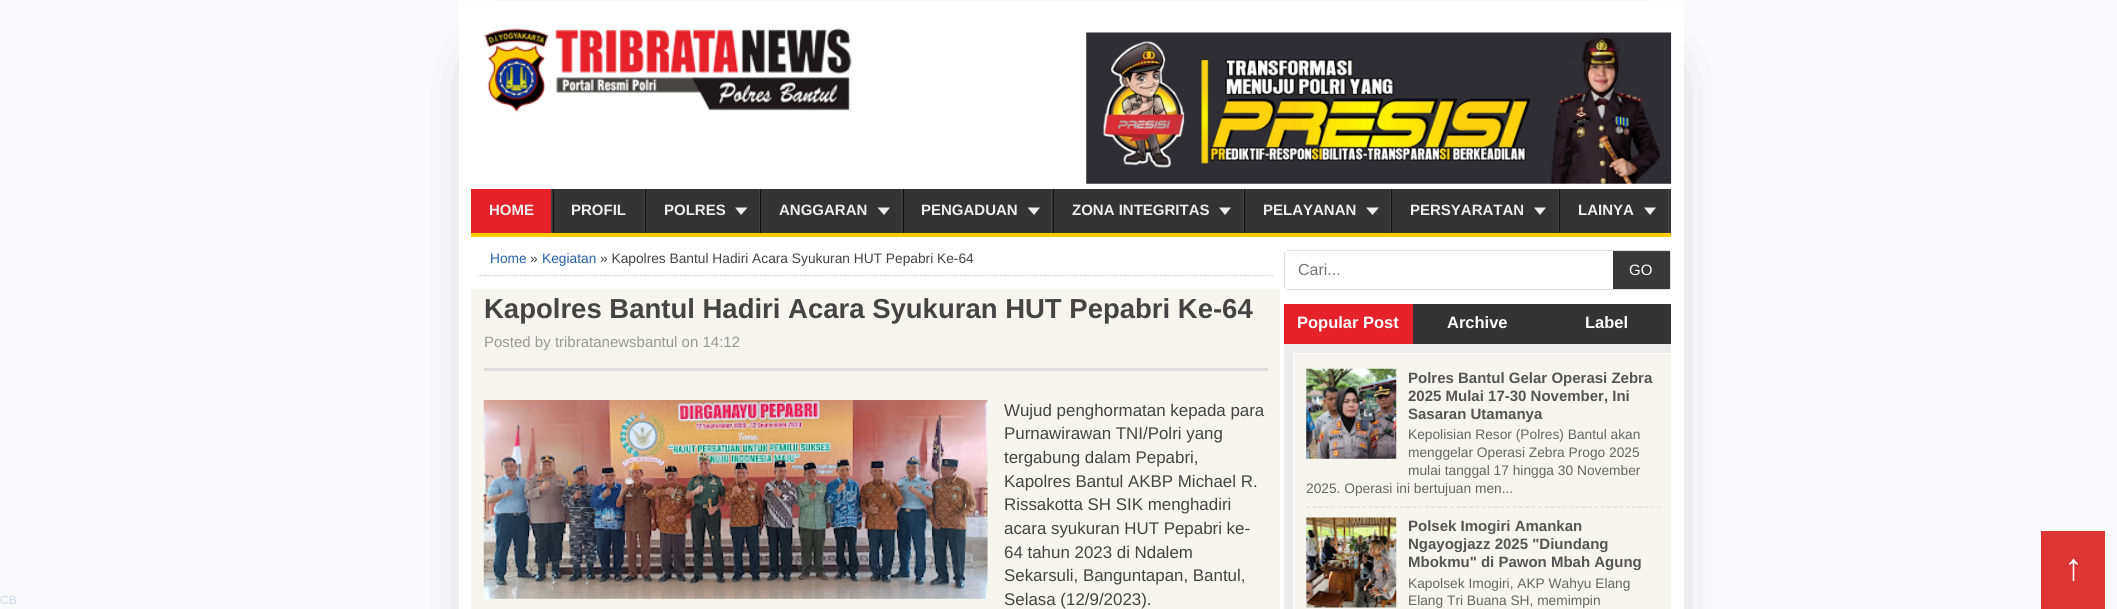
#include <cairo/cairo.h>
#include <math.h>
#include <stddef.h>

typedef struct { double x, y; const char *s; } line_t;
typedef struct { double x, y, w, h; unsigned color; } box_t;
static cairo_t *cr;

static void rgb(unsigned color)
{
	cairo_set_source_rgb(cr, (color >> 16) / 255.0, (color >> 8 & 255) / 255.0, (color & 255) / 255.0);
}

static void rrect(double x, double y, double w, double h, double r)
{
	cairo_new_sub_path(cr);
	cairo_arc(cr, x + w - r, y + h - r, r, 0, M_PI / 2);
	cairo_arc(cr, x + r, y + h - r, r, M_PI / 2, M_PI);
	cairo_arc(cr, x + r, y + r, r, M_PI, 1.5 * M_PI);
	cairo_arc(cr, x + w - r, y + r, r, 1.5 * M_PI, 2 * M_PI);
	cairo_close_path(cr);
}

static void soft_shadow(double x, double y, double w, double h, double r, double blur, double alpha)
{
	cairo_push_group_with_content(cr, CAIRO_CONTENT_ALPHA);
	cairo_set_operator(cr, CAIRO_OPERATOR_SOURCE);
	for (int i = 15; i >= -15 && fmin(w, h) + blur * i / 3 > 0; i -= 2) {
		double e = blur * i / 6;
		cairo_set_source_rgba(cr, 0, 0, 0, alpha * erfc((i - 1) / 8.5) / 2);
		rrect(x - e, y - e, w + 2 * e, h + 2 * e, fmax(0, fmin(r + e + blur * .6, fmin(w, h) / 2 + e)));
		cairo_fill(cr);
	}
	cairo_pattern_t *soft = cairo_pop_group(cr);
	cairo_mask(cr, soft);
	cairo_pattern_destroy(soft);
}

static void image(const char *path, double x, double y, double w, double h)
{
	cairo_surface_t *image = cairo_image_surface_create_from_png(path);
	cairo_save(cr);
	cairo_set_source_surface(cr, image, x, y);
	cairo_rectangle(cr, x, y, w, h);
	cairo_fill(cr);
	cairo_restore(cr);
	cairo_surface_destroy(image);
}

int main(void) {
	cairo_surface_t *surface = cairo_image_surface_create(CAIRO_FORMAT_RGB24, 2117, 609);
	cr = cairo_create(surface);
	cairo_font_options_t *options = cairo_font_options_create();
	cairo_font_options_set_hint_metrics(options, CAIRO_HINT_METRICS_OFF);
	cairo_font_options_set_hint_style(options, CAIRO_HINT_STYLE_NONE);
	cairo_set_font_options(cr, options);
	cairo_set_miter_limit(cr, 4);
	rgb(0xfafafc);
	cairo_paint(cr);
	rgb(0x000000);
	soft_shadow(509, 76, 1125, 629, 0, 32, 1);
	rgb(0xffffff);
	cairo_rectangle(cr, 459, 1, 1225, 608);
	cairo_fill(cr);
	image("img/1.png", 483, 28, 369, 85);
	image("img/2.png", 1086, 32, 586, 152);
	{
		static const box_t items[] = {
			{552, 189, 1119, 44, 0x343434},
			{471, 233, 1200, 4, 0xffcc00},
			{551, 189, 1, 44, 0x444444},
			{471, 189, 80, 44, 0xe62129},
			{644, 189, 1, 44, 0x444444},
			{553, 189, 1, 44, 0x111111},
			{759, 189, 1, 44, 0x444444},
			{645, 189, 1, 44, 0x111111},
		};
		for (size_t i = 0; i < sizeof items / sizeof *items; i++) {
			rgb(items[i].color);
			cairo_rectangle(cr, items[i].x, items[i].y, items[i].w, items[i].h);
			cairo_fill(cr);
		}
	}
	rgb(0xeeeeee);
	cairo_new_path(cr);
	cairo_move_to(cr, 735, 207.5);
	cairo_line_to(cr, 747.5, 207.5);
	cairo_line_to(cr, 741, 215);
	cairo_close_path(cr);
	cairo_fill(cr);
	rgb(0x444444);
	cairo_rectangle(cr, 901, 189, 1, 44);
	cairo_fill(cr);
	rgb(0x111111);
	cairo_rectangle(cr, 760, 189, 1, 44);
	cairo_fill(cr);
	rgb(0xeeeeee);
	cairo_new_path(cr);
	cairo_move_to(cr, 877.5, 207.5);
	cairo_line_to(cr, 890, 207.5);
	cairo_line_to(cr, 884, 215);
	cairo_close_path(cr);
	cairo_fill(cr);
	rgb(0x444444);
	cairo_rectangle(cr, 1051, 189, 1, 44);
	cairo_fill(cr);
	rgb(0x111111);
	cairo_rectangle(cr, 903, 189, 1, 44);
	cairo_fill(cr);
	rgb(0xeeeeee);
	cairo_new_path(cr);
	cairo_move_to(cr, 1027.5, 207.5);
	cairo_line_to(cr, 1040, 207.5);
	cairo_line_to(cr, 1034, 215);
	cairo_close_path(cr);
	cairo_fill(cr);
	rgb(0x444444);
	cairo_rectangle(cr, 1243, 189, 1, 44);
	cairo_fill(cr);
	rgb(0x111111);
	cairo_rectangle(cr, 1053, 189, 1, 44);
	cairo_fill(cr);
	rgb(0xeeeeee);
	cairo_new_path(cr);
	cairo_move_to(cr, 1219, 207.5);
	cairo_line_to(cr, 1231, 207.5);
	cairo_line_to(cr, 1225, 215);
	cairo_close_path(cr);
	cairo_fill(cr);
	rgb(0x444444);
	cairo_rectangle(cr, 1390, 189, 1, 44);
	cairo_fill(cr);
	rgb(0x111111);
	cairo_rectangle(cr, 1244, 189, 1, 44);
	cairo_fill(cr);
	rgb(0xeeeeee);
	cairo_new_path(cr);
	cairo_move_to(cr, 1366, 207.5);
	cairo_line_to(cr, 1379, 207.5);
	cairo_line_to(cr, 1372.5, 215);
	cairo_close_path(cr);
	cairo_fill(cr);
	rgb(0x444444);
	cairo_rectangle(cr, 1558, 189, 1, 44);
	cairo_fill(cr);
	rgb(0x111111);
	cairo_rectangle(cr, 1391, 189, 1, 44);
	cairo_fill(cr);
	rgb(0xeeeeee);
	cairo_new_path(cr);
	cairo_move_to(cr, 1534, 207.5);
	cairo_line_to(cr, 1546, 207.5);
	cairo_line_to(cr, 1540, 215);
	cairo_close_path(cr);
	cairo_fill(cr);
	rgb(0x444444);
	cairo_rectangle(cr, 1668, 189, 1, 44);
	cairo_fill(cr);
	rgb(0x111111);
	cairo_rectangle(cr, 1559, 189, 1, 44);
	cairo_fill(cr);
	rgb(0xeeeeee);
	cairo_new_path(cr);
	cairo_move_to(cr, 1644, 207.5);
	cairo_line_to(cr, 1656, 207.5);
	cairo_line_to(cr, 1650, 215);
	cairo_close_path(cr);
	cairo_fill(cr);
	cairo_new_path(cr);
	cairo_move_to(cr, 477.5, 275.5);
	cairo_line_to(cr, 1274, 275.5);
	rgb(0xcccccc);
	cairo_set_line_width(cr, 1.2);
	cairo_set_dash(cr, (double[]){1.25, 1.25}, 2, 0);
	cairo_stroke(cr);
	rgb(0xf6f5ee);
	cairo_rectangle(cr, 471, 289, 809, 320);
	cairo_fill(cr);
	rgb(0xdddddd);
	cairo_rectangle(cr, 484, 368, 784, 3);
	cairo_fill(cr);
	image("img/3.png", 483, 400, 505, 199);
	rrect(1284.5, 250.5, 386, 39, 3.5);
	cairo_set_line_width(cr, 1);
	cairo_set_dash(cr, NULL, 0, 0);
	cairo_stroke(cr);
	{
		static const box_t items[] = {
			{1285, 251, 3, 38, 0xffffff},
			{1613, 251, 57, 38, 0x393939},
			{1284, 304, 129, 40, 0xe62129},
			{1413, 304, 258, 40, 0x343434},
			{1284, 344, 387, 265, 0xececec},
			{1294, 354, 377, 255, 0xf6f5ee},
		};
		for (size_t i = 0; i < sizeof items / sizeof *items; i++) {
			rgb(items[i].color);
			cairo_rectangle(cr, items[i].x, items[i].y, items[i].w, items[i].h);
			cairo_fill(cr);
		}
	}
	cairo_save(cr);
	cairo_rectangle(cr, 1284, 344, 387, 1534);
	cairo_clip(cr);
	cairo_rectangle(cr, 1293.5, 353.5, 381, 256);
	rgb(0xffffff);
	cairo_stroke(cr);
	cairo_restore(cr);
	cairo_new_path(cr);
	cairo_move_to(cr, 1306, 507);
	cairo_line_to(cr, 1661, 507);
	rgb(0xdddddd);
	cairo_set_line_width(cr, 1.2);
	cairo_set_dash(cr, (double[]){3.75, 2.52}, 2, 0);
	cairo_stroke(cr);
	image("img/4.png", 1306, 368, 91, 91);
	image("img/5.png", 1306, 517, 91, 91);
	rgb(0xdd3434);
	cairo_rectangle(cr, 2041, 531, 64, 78);
	cairo_fill(cr);
	cairo_select_font_face(cr, "Liberation Sans", CAIRO_FONT_SLANT_NORMAL, CAIRO_FONT_WEIGHT_BOLD);
	cairo_set_font_size(cr, 15);
	rgb(0xeeeeee);
	{
		static const line_t items[] = {
			{489, 215, "HOME"},
			{571, 215, "PROFIL"},
			{664, 215, "POLRES"},
			{779, 215, "ANGGARAN"},
			{921, 215, "PENGADUAN"},
			{1072, 215, "ZONA INTEGRITAS"},
			{1263, 215, "PELAYANAN"},
			{1410, 215, "PERSYARATAN"},
			{1578, 215, "LAINYA"},
		};
		for (size_t i = 0; i < sizeof items / sizeof *items; i++) {
			cairo_move_to(cr, items[i].x, items[i].y);
			cairo_show_text(cr, items[i].s);
		}
	}
	cairo_select_font_face(cr, "Liberation Sans", CAIRO_FONT_SLANT_NORMAL, CAIRO_FONT_WEIGHT_NORMAL);
	cairo_set_font_size(cr, 13.75);
	rgb(0x2560aa);
	cairo_move_to(cr, 490, 263);
	cairo_show_text(cr, "Home");
	rgb(0x444444);
	cairo_move_to(cr, 530, 263);
	cairo_show_text(cr, "»");
	rgb(0x2560aa);
	cairo_move_to(cr, 542, 263);
	cairo_show_text(cr, "Kegiatan");
	rgb(0x444444);
	cairo_move_to(cr, 600, 263);
	cairo_show_text(cr, "» Kapolres Bantul Hadiri Acara Syukuran HUT Pepabri Ke-64");
	cairo_select_font_face(cr, "Liberation Sans", CAIRO_FONT_SLANT_NORMAL, CAIRO_FONT_WEIGHT_BOLD);
	cairo_set_font_size(cr, 27.5);
	cairo_move_to(cr, 484, 318);
	cairo_show_text(cr, "Kapolres Bantul Hadiri Acara Syukuran HUT Pepabri Ke-64");
	cairo_select_font_face(cr, "Liberation Sans", CAIRO_FONT_SLANT_NORMAL, CAIRO_FONT_WEIGHT_NORMAL);
	cairo_set_font_size(cr, 15);
	rgb(0x999999);
	cairo_move_to(cr, 484, 347);
	cairo_show_text(cr, "Posted by tribratanewsbantul on 14:12");
	cairo_set_font_size(cr, 16.9);
	rgb(0x444444);
	{
		static const line_t items[] = {
			{1004, 416, "Wujud penghormatan kepada para"},
			{1004, 439, "Purnawirawan TNI/Polri yang"},
			{1004, 463, "tergabung dalam Pepabri,"},
			{1004, 487, "Kapolres Bantul AKBP Michael R."},
			{1004, 510, "Rissakotta SH SIK menghadiri"},
			{1004, 534, "acara syukuran HUT Pepabri ke-"},
			{1004, 558, "64 tahun 2023 di Ndalem"},
			{1004, 581, "Sekarsuli, Banguntapan, Bantul,"},
			{1004, 605, "Selasa (12/9/2023)."},
		};
		for (size_t i = 0; i < sizeof items / sizeof *items; i++) {
			cairo_move_to(cr, items[i].x, items[i].y);
			cairo_show_text(cr, items[i].s);
		}
	}
	cairo_set_font_size(cr, 16);
	rgb(0x757575);
	cairo_move_to(cr, 1298, 275);
	cairo_show_text(cr, "Cari...");
	cairo_set_font_size(cr, 15);
	rgb(0xffffff);
	cairo_move_to(cr, 1629, 275);
	cairo_show_text(cr, "GO");
	cairo_select_font_face(cr, "Liberation Sans", CAIRO_FONT_SLANT_NORMAL, CAIRO_FONT_WEIGHT_BOLD);
	cairo_set_font_size(cr, 16.5);
	{
		static const line_t items[] = {
			{1297, 328, "Popular Post"},
			{1447, 328, "Archive"},
			{1585, 328, "Label"},
		};
		for (size_t i = 0; i < sizeof items / sizeof *items; i++) {
			cairo_move_to(cr, items[i].x, items[i].y);
			cairo_show_text(cr, items[i].s);
		}
	}
	cairo_set_font_size(cr, 15);
	rgb(0x555555);
	{
		static const line_t items[] = {
			{1408, 383, "Polres Bantul Gelar Operasi Zebra"},
			{1408, 401, "2025 Mulai 17-30 November, Ini"},
			{1408, 419, "Sasaran Utamanya"},
		};
		for (size_t i = 0; i < sizeof items / sizeof *items; i++) {
			cairo_move_to(cr, items[i].x, items[i].y);
			cairo_show_text(cr, items[i].s);
		}
	}
	cairo_select_font_face(cr, "Liberation Sans", CAIRO_FONT_SLANT_NORMAL, CAIRO_FONT_WEIGHT_NORMAL);
	cairo_set_font_size(cr, 13.75);
	rgb(0x666666);
	{
		static const line_t items[] = {
			{1408, 439, "Kepolisian Resor (Polres) Bantul akan"},
			{1408, 457, "menggelar Operasi Zebra Progo 2025"},
			{1408, 475, "mulai tanggal 17 hingga 30 November"},
			{1306, 493, "2025. Operasi ini bertujuan men..."},
		};
		for (size_t i = 0; i < sizeof items / sizeof *items; i++) {
			cairo_move_to(cr, items[i].x, items[i].y);
			cairo_show_text(cr, items[i].s);
		}
	}
	cairo_select_font_face(cr, "Liberation Sans", CAIRO_FONT_SLANT_NORMAL, CAIRO_FONT_WEIGHT_BOLD);
	cairo_set_font_size(cr, 15);
	rgb(0x555555);
	{
		static const line_t items[] = {
			{1408, 531, "Polsek Imogiri Amankan"},
			{1408, 549, "Ngayogjazz 2025 \"Diundang"},
			{1408, 567, "Mbokmu\" di Pawon Mbah Agung"},
		};
		for (size_t i = 0; i < sizeof items / sizeof *items; i++) {
			cairo_move_to(cr, items[i].x, items[i].y);
			cairo_show_text(cr, items[i].s);
		}
	}
	cairo_select_font_face(cr, "Liberation Sans", CAIRO_FONT_SLANT_NORMAL, CAIRO_FONT_WEIGHT_NORMAL);
	cairo_set_font_size(cr, 13.75);
	rgb(0x666666);
	cairo_move_to(cr, 1408, 588);
	cairo_show_text(cr, "Kapolsek Imogiri, AKP Wahyu Elang");
	cairo_move_to(cr, 1408, 605);
	cairo_show_text(cr, "Elang Tri Buana SH, memimpin");
	cairo_set_font_size(cr, 38);
	rgb(0xffffff);
	cairo_move_to(cr, 2064, 580);
	cairo_show_text(cr, "↑");
	cairo_set_font_size(cr, 12);
	rgb(0xcfdbec);
	cairo_move_to(cr, 0, 604);
	cairo_show_text(cr, "CB");
	cairo_surface_write_to_png(surface, "page.png");
	cairo_font_options_destroy(options);
	cairo_destroy(cr);
	cairo_surface_destroy(surface);
	return 0;
}
